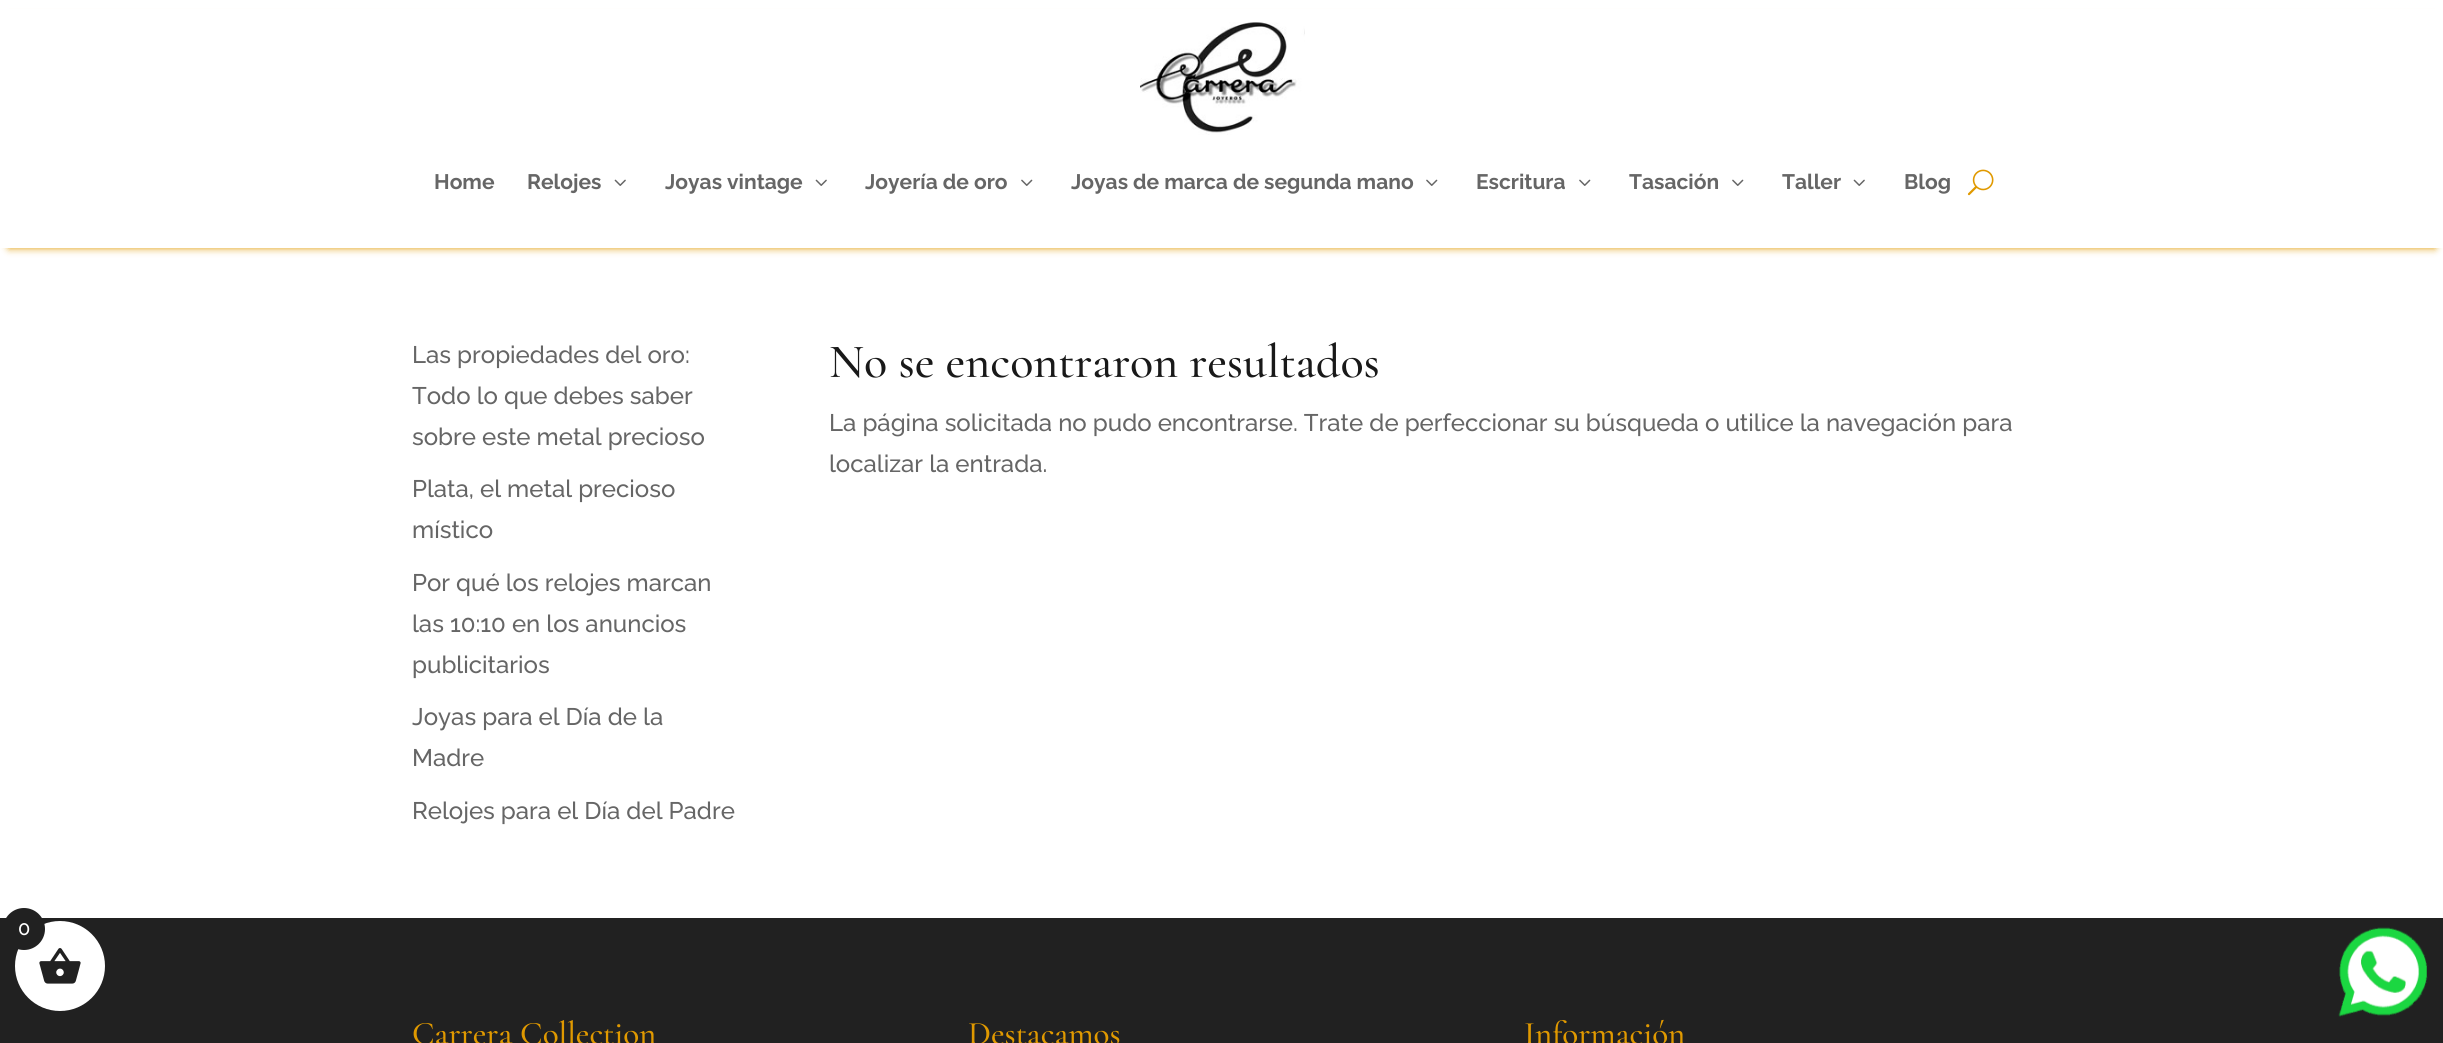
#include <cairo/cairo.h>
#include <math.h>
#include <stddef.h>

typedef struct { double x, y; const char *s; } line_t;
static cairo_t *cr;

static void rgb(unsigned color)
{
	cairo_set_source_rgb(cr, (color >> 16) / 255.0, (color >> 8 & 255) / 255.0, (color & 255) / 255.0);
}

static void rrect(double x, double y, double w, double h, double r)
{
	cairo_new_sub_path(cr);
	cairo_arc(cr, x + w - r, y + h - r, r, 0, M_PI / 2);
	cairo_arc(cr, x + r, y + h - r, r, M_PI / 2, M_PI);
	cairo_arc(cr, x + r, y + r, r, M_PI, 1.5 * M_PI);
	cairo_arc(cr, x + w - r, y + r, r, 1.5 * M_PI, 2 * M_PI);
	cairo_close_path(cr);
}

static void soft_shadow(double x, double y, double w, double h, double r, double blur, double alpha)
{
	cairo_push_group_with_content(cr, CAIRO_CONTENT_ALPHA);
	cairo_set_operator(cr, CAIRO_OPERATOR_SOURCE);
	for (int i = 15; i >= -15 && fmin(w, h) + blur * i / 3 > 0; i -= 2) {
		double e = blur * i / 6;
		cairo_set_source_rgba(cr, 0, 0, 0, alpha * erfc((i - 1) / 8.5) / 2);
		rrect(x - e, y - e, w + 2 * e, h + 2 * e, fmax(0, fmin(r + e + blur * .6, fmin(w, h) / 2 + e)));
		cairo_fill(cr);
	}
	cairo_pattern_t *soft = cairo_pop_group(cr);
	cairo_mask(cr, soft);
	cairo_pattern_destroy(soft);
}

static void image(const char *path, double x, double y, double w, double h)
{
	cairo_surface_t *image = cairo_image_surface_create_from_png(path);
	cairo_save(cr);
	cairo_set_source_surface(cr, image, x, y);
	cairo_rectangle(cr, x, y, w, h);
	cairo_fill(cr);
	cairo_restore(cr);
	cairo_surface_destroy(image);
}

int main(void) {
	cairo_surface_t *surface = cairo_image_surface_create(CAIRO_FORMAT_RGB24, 2443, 1043);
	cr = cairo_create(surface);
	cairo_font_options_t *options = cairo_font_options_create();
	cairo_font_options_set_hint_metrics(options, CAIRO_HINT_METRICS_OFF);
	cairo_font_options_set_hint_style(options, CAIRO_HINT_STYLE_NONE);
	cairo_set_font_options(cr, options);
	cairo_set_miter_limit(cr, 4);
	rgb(0xffffff);
	cairo_paint(cr);
	rgb(0x212121);
	cairo_rectangle(cr, 0, 918, 2443, 125);
	cairo_fill(cr);
	rgb(0xffffff);
	cairo_arc(cr, 60, 966, 45, 0, 2 * M_PI);
	cairo_fill(cr);
	image("img/1.png", 39, 948, 42, 36);
	rgb(0x212121);
	cairo_arc(cr, 24, 929, 21, 0, 2 * M_PI);
	cairo_fill(cr);
	rgb(0xe09900);
	soft_shadow(9, 18, 2426, 230, 0, 4, 1);
	rgb(0xffffff);
	cairo_rectangle(cr, 0, 9, 2443, 239);
	cairo_fill(cr);
	image("img/2.png", 1140, 22, 165, 113);
	image("img/3.png", 614, 179, 12, 7);
	image("img/3.png", 815, 179, 12, 7);
	image("img/4.png", 1021, 179, 12, 7);
	image("img/4.png", 1426, 179, 12, 7);
	image("img/4.png", 1579, 179, 12, 7);
	image("img/4.png", 1732, 179, 12, 7);
	image("img/3.png", 1853, 179, 12, 7);
	image("img/5.png", 1967, 169, 27, 27);
	image("img/6.png", 2338, 927, 90, 90);
	cairo_select_font_face(cr, "Raleway Medium", CAIRO_FONT_SLANT_NORMAL, CAIRO_FONT_WEIGHT_NORMAL);
	cairo_set_font_size(cr, 20);
	cairo_move_to(cr, 18, 935);
	cairo_show_text(cr, "0");
	cairo_select_font_face(cr, "Raleway", CAIRO_FONT_SLANT_NORMAL, CAIRO_FONT_WEIGHT_BOLD);
	cairo_set_font_size(cr, 21);
	rgb(0x666666);
	{
		static const line_t items[] = {
			{434, 189, "Home"},
			{527, 189, "Relojes"},
			{665, 189, "Joyas vintage"},
			{865, 189, "Joyería de oro"},
			{1071, 189, "Joyas de marca de segunda mano"},
			{1476, 189, "Escritura"},
			{1629, 189, "Tasación"},
			{1782, 189, "Taller"},
			{1904, 189, "Blog"},
		};
		for (size_t i = 0; i < sizeof items / sizeof *items; i++) {
			cairo_move_to(cr, items[i].x, items[i].y);
			cairo_show_text(cr, items[i].s);
		}
	}
	cairo_select_font_face(cr, "Raleway Medium", CAIRO_FONT_SLANT_NORMAL, CAIRO_FONT_WEIGHT_NORMAL);
	cairo_set_font_size(cr, 24);
	{
		static const line_t items[] = {
			{412, 363, "Las propiedades del oro:"},
			{412, 404, "Todo lo que debes saber"},
			{412, 445, "sobre este metal precioso"},
			{412, 497, "Plata, el metal precioso"},
			{412, 538, "místico"},
			{412, 591, "Por qué los relojes marcan"},
			{412, 632, "las 10:10 en los anuncios"},
			{412, 673, "publicitarios"},
			{412, 725, "Joyas para el Día de la"},
			{412, 766, "Madre"},
			{412, 819, "Relojes para el Día del Padre"},
		};
		for (size_t i = 0; i < sizeof items / sizeof *items; i++) {
			cairo_move_to(cr, items[i].x, items[i].y);
			cairo_show_text(cr, items[i].s);
		}
	}
	cairo_select_font_face(cr, "Cormorant Garamond Medium", CAIRO_FONT_SLANT_NORMAL, CAIRO_FONT_WEIGHT_NORMAL);
	cairo_set_font_size(cr, 48);
	rgb(0x191919);
	cairo_move_to(cr, 829, 377);
	cairo_show_text(cr, "No se encontraron resultados");
	cairo_select_font_face(cr, "Raleway Medium", CAIRO_FONT_SLANT_NORMAL, CAIRO_FONT_WEIGHT_NORMAL);
	cairo_set_font_size(cr, 24);
	rgb(0x666666);
	cairo_move_to(cr, 829, 431);
	cairo_show_text(cr, "La página solicitada no pudo encontrarse. Trate de perfeccionar su búsqueda o utilice la navegación para");
	cairo_move_to(cr, 829, 472);
	cairo_show_text(cr, "localizar la entrada.");
	cairo_select_font_face(cr, "Cormorant Garamond Medium", CAIRO_FONT_SLANT_NORMAL, CAIRO_FONT_WEIGHT_NORMAL);
	cairo_set_font_size(cr, 33);
	rgb(0xe09900);
	{
		static const line_t items[] = {
			{412, 1044, "Carrera Collection"},
			{968, 1044, "Destacamos"},
			{1524, 1044, "Información"},
		};
		for (size_t i = 0; i < sizeof items / sizeof *items; i++) {
			cairo_move_to(cr, items[i].x, items[i].y);
			cairo_show_text(cr, items[i].s);
		}
	}
	cairo_surface_write_to_png(surface, "page.png");
	cairo_font_options_destroy(options);
	cairo_destroy(cr);
	cairo_surface_destroy(surface);
	return 0;
}
